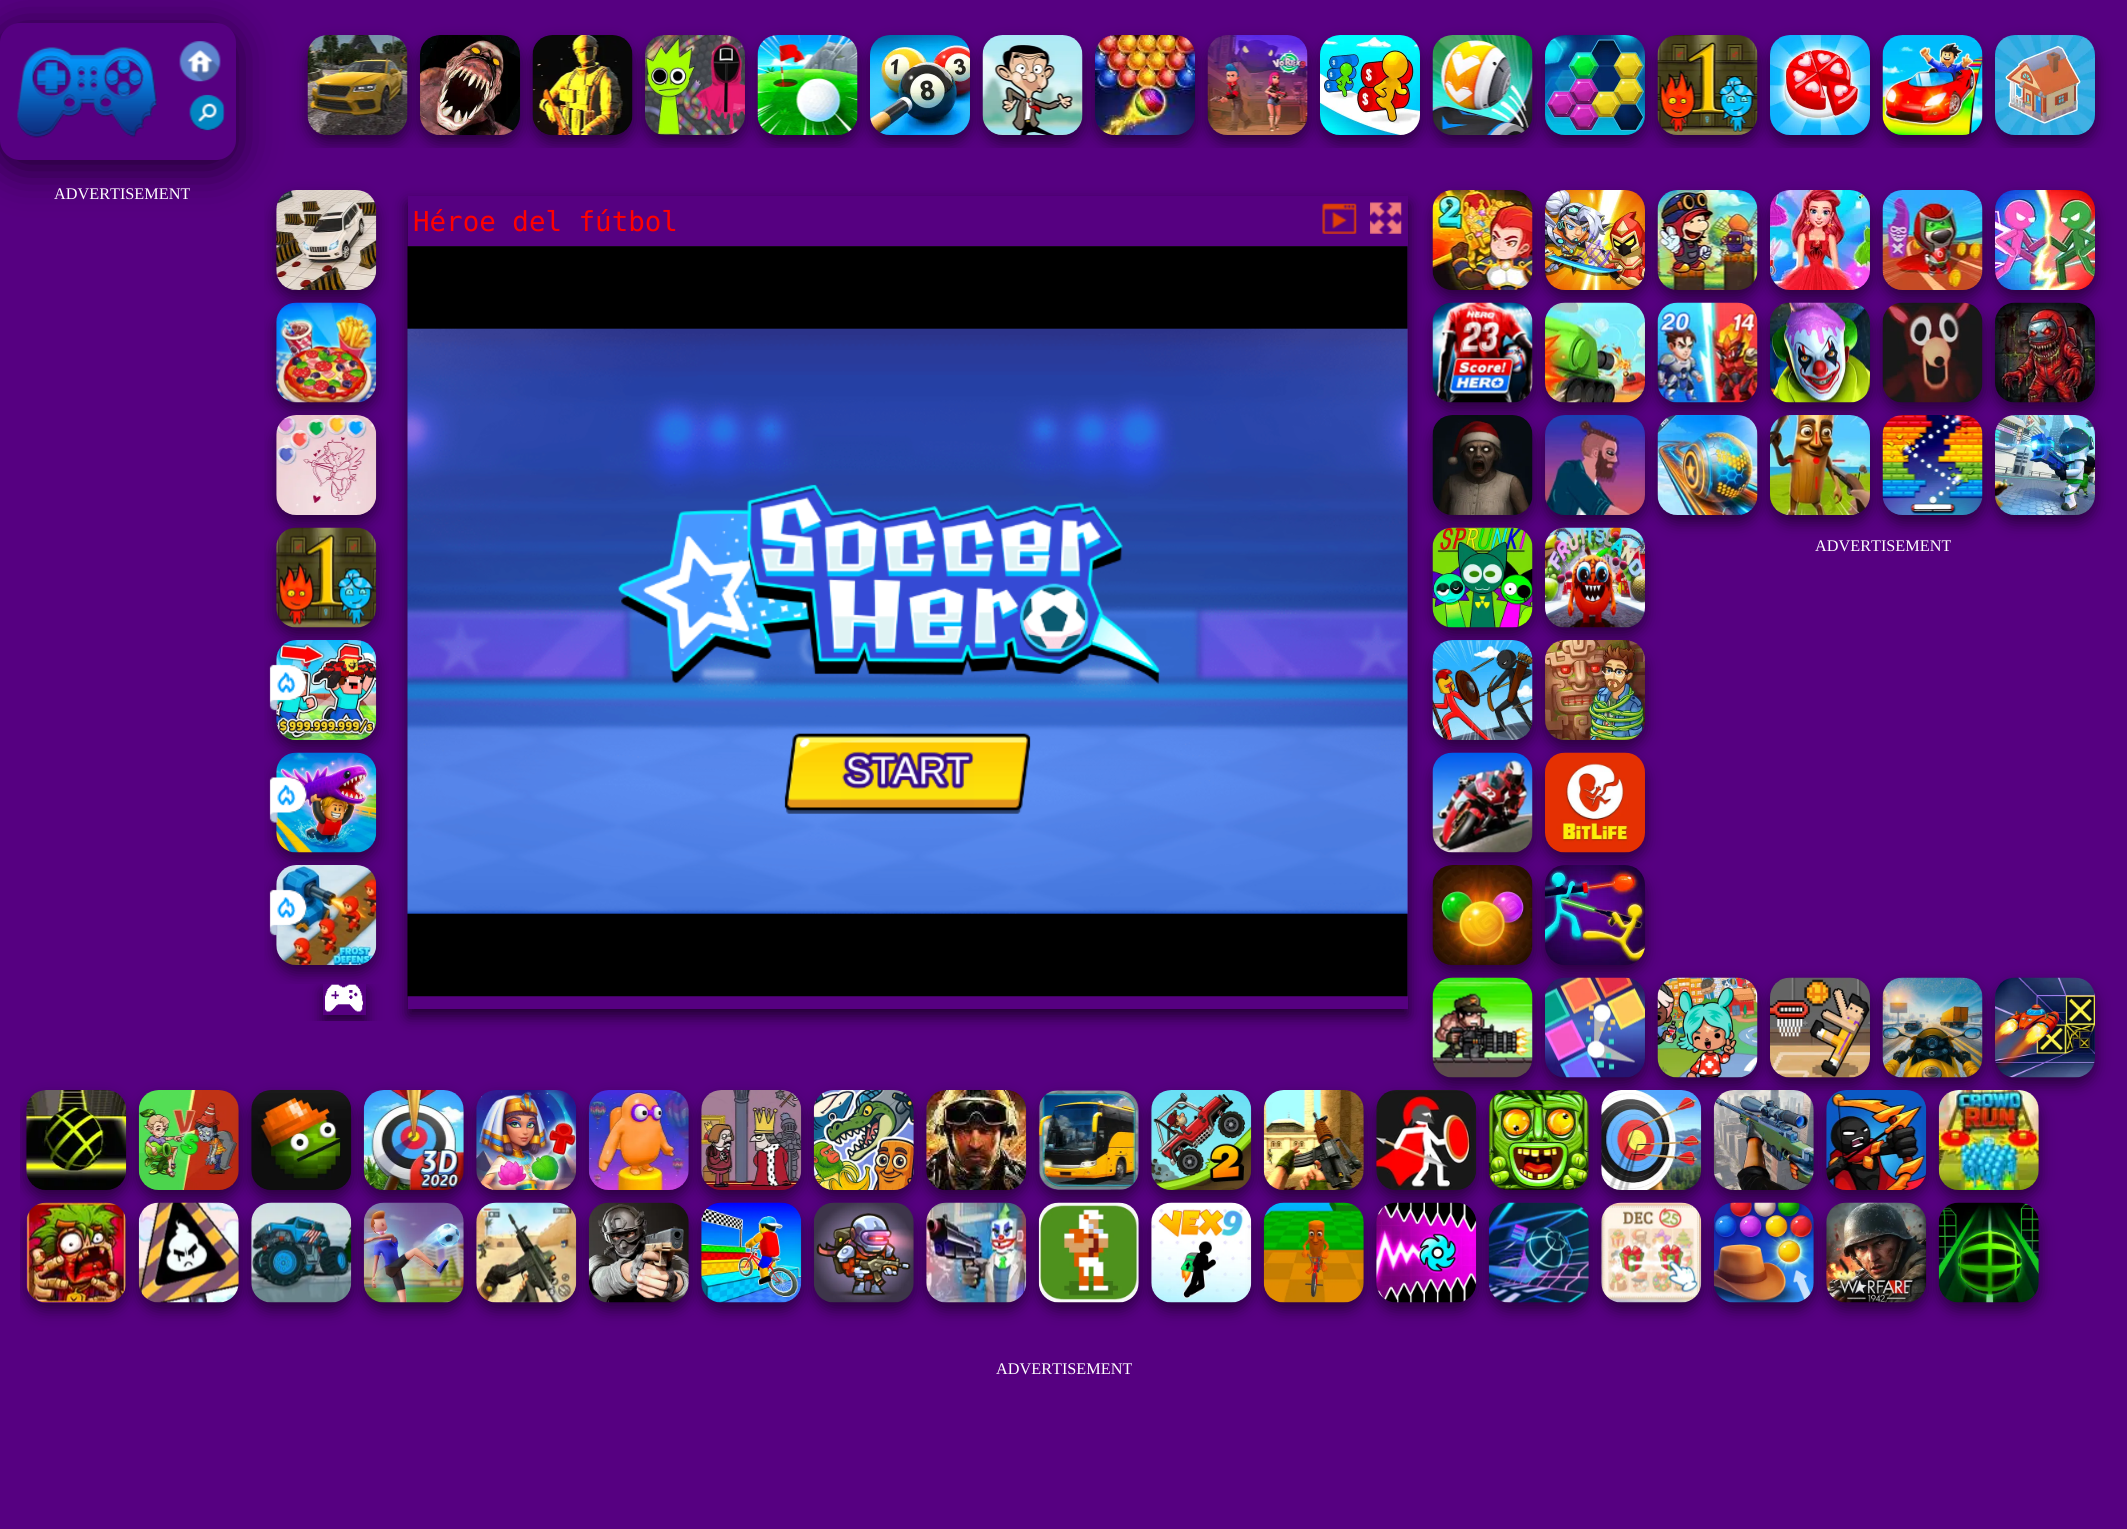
#include <cairo/cairo.h>
#include <math.h>
#include <stddef.h>

static cairo_t *cr;

static void rgb(unsigned color)
{
	cairo_set_source_rgb(cr, (color >> 16) / 255.0, (color >> 8 & 255) / 255.0, (color & 255) / 255.0);
}

static void rrect(double x, double y, double w, double h, double r)
{
	cairo_new_sub_path(cr);
	cairo_arc(cr, x + w - r, y + h - r, r, 0, M_PI / 2);
	cairo_arc(cr, x + r, y + h - r, r, M_PI / 2, M_PI);
	cairo_arc(cr, x + r, y + r, r, M_PI, 1.5 * M_PI);
	cairo_arc(cr, x + w - r, y + r, r, 1.5 * M_PI, 2 * M_PI);
	cairo_close_path(cr);
}

static void soft_shadow(double x, double y, double w, double h, double r, double blur, double alpha)
{
	cairo_push_group_with_content(cr, CAIRO_CONTENT_ALPHA);
	cairo_set_operator(cr, CAIRO_OPERATOR_SOURCE);
	for (int i = 15; i >= -15 && fmin(w, h) + blur * i / 3 > 0; i -= 2) {
		double e = blur * i / 6;
		cairo_set_source_rgba(cr, 0, 0, 0, alpha * erfc((i - 1) / 8.5) / 2);
		rrect(x - e, y - e, w + 2 * e, h + 2 * e, fmax(0, fmin(r + e + blur * .6, fmin(w, h) / 2 + e)));
		cairo_fill(cr);
	}
	cairo_pattern_t *soft = cairo_pop_group(cr);
	cairo_mask(cr, soft);
	cairo_pattern_destroy(soft);
}

static void image(const char *path, double x, double y, double w, double h)
{
	cairo_surface_t *image = cairo_image_surface_create_from_png(path);
	cairo_save(cr);
	cairo_set_source_surface(cr, image, x, y);
	cairo_rectangle(cr, x, y, w, h);
	cairo_fill(cr);
	cairo_restore(cr);
	cairo_surface_destroy(image);
}

int main(void) {
	cairo_surface_t *surface = cairo_image_surface_create(CAIRO_FORMAT_RGB24, 2127, 1529);
	cr = cairo_create(surface);
	cairo_font_options_t *options = cairo_font_options_create();
	cairo_font_options_set_hint_metrics(options, CAIRO_HINT_METRICS_OFF);
	cairo_font_options_set_hint_style(options, CAIRO_HINT_STYLE_NONE);
	cairo_set_font_options(cr, options);
	cairo_set_miter_limit(cr, 4);
	rgb(0x560081);
	cairo_paint(cr);
	cairo_save(cr);
	cairo_rectangle(cr, 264, 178, 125, 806);
	cairo_clip(cr);
	rgb(0x000000);
	soft_shadow(276, 198, 100, 100, 20, 7.5, 0.52);
	cairo_restore(cr);
	image("img/21.png", 276, 190, 101, 100);
	rgb(0x000000);
	soft_shadow(0, 30, 236, 138, 20, 20, 0.65);
	rgb(0x560081);
	rrect(0, 23, 236, 137, 20);
	cairo_fill(cr);
	image("img/1.png", 17, 51, 141, 87);
	image("img/2.png", 17, 47, 140, 87);
	image("img/3.png", 179, 41, 42, 41);
	image("img/4.png", 189, 94, 36, 37);
	cairo_save(cr);
	cairo_rectangle(cr, 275, 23, 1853, 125);
	cairo_clip(cr);
	rgb(0x000000);
	soft_shadow(308, 43, 100, 100, 20, 7.5, 0.52);
	cairo_restore(cr);
	image("img/5.png", 307, 35, 101, 100);
	cairo_save(cr);
	cairo_rectangle(cr, 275, 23, 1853, 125);
	cairo_clip(cr);
	rgb(0x000000);
	soft_shadow(420, 43, 100, 100, 20, 7.5, 0.52);
	cairo_restore(cr);
	image("img/6.png", 420, 35, 100, 100);
	cairo_save(cr);
	cairo_rectangle(cr, 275, 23, 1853, 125);
	cairo_clip(cr);
	rgb(0x000000);
	soft_shadow(533, 43, 100, 100, 20, 7.5, 0.52);
	cairo_restore(cr);
	image("img/7.png", 532, 35, 101, 100);
	cairo_save(cr);
	cairo_rectangle(cr, 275, 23, 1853, 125);
	cairo_clip(cr);
	rgb(0x000000);
	soft_shadow(645, 43, 100, 100, 20, 7.5, 0.52);
	cairo_restore(cr);
	image("img/8.png", 645, 35, 100, 100);
	cairo_save(cr);
	cairo_rectangle(cr, 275, 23, 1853, 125);
	cairo_clip(cr);
	rgb(0x000000);
	soft_shadow(758, 43, 100, 100, 20, 7.5, 0.52);
	cairo_restore(cr);
	image("img/9.png", 757, 35, 101, 100);
	cairo_save(cr);
	cairo_rectangle(cr, 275, 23, 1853, 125);
	cairo_clip(cr);
	rgb(0x000000);
	soft_shadow(870, 43, 100, 100, 20, 7.5, 0.52);
	cairo_restore(cr);
	image("img/10.png", 870, 35, 100, 100);
	cairo_save(cr);
	cairo_rectangle(cr, 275, 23, 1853, 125);
	cairo_clip(cr);
	rgb(0x000000);
	soft_shadow(983, 43, 100, 100, 20, 7.5, 0.52);
	cairo_restore(cr);
	image("img/11.png", 982, 35, 101, 100);
	cairo_save(cr);
	cairo_rectangle(cr, 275, 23, 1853, 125);
	cairo_clip(cr);
	rgb(0x000000);
	soft_shadow(1095, 43, 100, 100, 20, 7.5, 0.52);
	cairo_restore(cr);
	image("img/12.png", 1095, 35, 100, 100);
	cairo_save(cr);
	cairo_rectangle(cr, 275, 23, 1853, 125);
	cairo_clip(cr);
	rgb(0x000000);
	soft_shadow(1208, 43, 100, 100, 20, 7.5, 0.52);
	cairo_restore(cr);
	image("img/13.png", 1207, 35, 101, 100);
	cairo_save(cr);
	cairo_rectangle(cr, 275, 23, 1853, 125);
	cairo_clip(cr);
	rgb(0x000000);
	soft_shadow(1320, 43, 100, 100, 20, 7.5, 0.52);
	cairo_restore(cr);
	image("img/14.png", 1320, 35, 100, 100);
	cairo_save(cr);
	cairo_rectangle(cr, 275, 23, 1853, 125);
	cairo_clip(cr);
	rgb(0x000000);
	soft_shadow(1433, 43, 100, 100, 20, 7.5, 0.52);
	cairo_restore(cr);
	image("img/15.png", 1432, 35, 101, 100);
	cairo_save(cr);
	cairo_rectangle(cr, 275, 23, 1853, 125);
	cairo_clip(cr);
	rgb(0x000000);
	soft_shadow(1545, 43, 100, 100, 20, 7.5, 0.52);
	cairo_restore(cr);
	image("img/16.png", 1545, 35, 100, 100);
	cairo_save(cr);
	cairo_rectangle(cr, 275, 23, 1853, 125);
	cairo_clip(cr);
	rgb(0x000000);
	soft_shadow(1658, 43, 100, 100, 20, 7.5, 0.52);
	cairo_restore(cr);
	image("img/17.png", 1657, 35, 101, 100);
	cairo_save(cr);
	cairo_rectangle(cr, 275, 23, 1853, 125);
	cairo_clip(cr);
	rgb(0x000000);
	soft_shadow(1770, 43, 100, 100, 20, 7.5, 0.52);
	cairo_restore(cr);
	image("img/18.png", 1770, 35, 100, 100);
	cairo_save(cr);
	cairo_rectangle(cr, 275, 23, 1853, 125);
	cairo_clip(cr);
	rgb(0x000000);
	soft_shadow(1883, 43, 100, 100, 20, 7.5, 0.52);
	cairo_restore(cr);
	image("img/19.png", 1882, 35, 101, 100);
	cairo_save(cr);
	cairo_rectangle(cr, 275, 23, 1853, 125);
	cairo_clip(cr);
	rgb(0x000000);
	soft_shadow(1995, 43, 100, 100, 20, 7.5, 0.52);
	cairo_restore(cr);
	image("img/20.png", 1995, 35, 100, 100);
	cairo_save(cr);
	cairo_rectangle(cr, 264, 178, 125, 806);
	cairo_clip(cr);
	rgb(0x000000);
	soft_shadow(276, 310, 100, 100, 20, 7.5, 0.52);
	cairo_restore(cr);
	image("img/22.png", 276, 302, 101, 101);
	cairo_save(cr);
	cairo_rectangle(cr, 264, 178, 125, 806);
	cairo_clip(cr);
	rgb(0x000000);
	soft_shadow(276, 423, 100, 100, 20, 7.5, 0.52);
	cairo_restore(cr);
	image("img/23.png", 276, 415, 101, 100);
	cairo_save(cr);
	cairo_rectangle(cr, 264, 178, 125, 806);
	cairo_clip(cr);
	rgb(0x000000);
	soft_shadow(276, 535, 100, 100, 20, 7.5, 0.52);
	cairo_restore(cr);
	image("img/24.png", 276, 527, 101, 101);
	cairo_save(cr);
	cairo_rectangle(cr, 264, 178, 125, 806);
	cairo_clip(cr);
	rgb(0x000000);
	soft_shadow(276, 648, 100, 100, 20, 7.5, 0.52);
	cairo_restore(cr);
	image("img/25.png", 276, 640, 101, 100);
	image("img/26.png", 269, 664, 38, 47);
	cairo_save(cr);
	cairo_rectangle(cr, 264, 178, 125, 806);
	cairo_clip(cr);
	rgb(0x000000);
	soft_shadow(276, 760, 100, 100, 20, 7.5, 0.52);
	cairo_restore(cr);
	image("img/27.png", 276, 752, 101, 101);
	image("img/28.png", 269, 777, 38, 46);
	cairo_save(cr);
	cairo_rectangle(cr, 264, 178, 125, 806);
	cairo_clip(cr);
	rgb(0x000000);
	soft_shadow(276, 873, 100, 100, 20, 7.5, 0.52);
	cairo_restore(cr);
	image("img/29.png", 276, 865, 101, 100);
	image("img/30.png", 269, 889, 38, 47);
	cairo_save(cr);
	cairo_rectangle(cr, 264, 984, 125, 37);
	cairo_clip(cr);
	cairo_set_fill_rule(cr, CAIRO_FILL_RULE_EVEN_ODD);
	cairo_new_path(cr);
	cairo_move_to(cr, 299, 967);
	cairo_line_to(cr, 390, 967);
	cairo_line_to(cr, 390, 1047);
	cairo_line_to(cr, 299, 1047);
	cairo_close_path(cr);
	cairo_move_to(cr, 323, 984);
	cairo_line_to(cr, 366, 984);
	cairo_line_to(cr, 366, 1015);
	cairo_line_to(cr, 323, 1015);
	cairo_close_path(cr);
	cairo_clip(cr);
	rgb(0x000000);
	soft_shadow(323, 991, 43, 32, 0, 7.5, 0.55);
	cairo_restore(cr);
	image("img/31.png", 325, 984, 38, 28);
	rgb(0x000000);
	soft_shadow(1433, 198, 100, 100, 20, 7.5, 0.52);
	image("img/32.png", 1432, 190, 101, 100);
	soft_shadow(1545, 198, 100, 100, 20, 7.5, 0.52);
	image("img/33.png", 1545, 190, 100, 100);
	soft_shadow(1658, 198, 100, 100, 20, 7.5, 0.52);
	image("img/34.png", 1657, 190, 101, 100);
	soft_shadow(1770, 198, 100, 100, 20, 7.5, 0.52);
	image("img/35.png", 1770, 190, 100, 100);
	soft_shadow(1883, 198, 100, 100, 20, 7.5, 0.52);
	image("img/36.png", 1882, 190, 101, 100);
	soft_shadow(1995, 198, 100, 100, 20, 7.5, 0.52);
	image("img/37.png", 1995, 190, 100, 100);
	soft_shadow(408, 204, 1000, 812, 0, 7.5, 0.65);
	rgb(0x560081);
	cairo_rectangle(cr, 408, 196, 1000, 813);
	cairo_fill(cr);
	image("img/38.png", 1322, 203, 35, 31);
	image("img/39.png", 1370, 202, 32, 32);
	image("img/40.png", 407, 246, 1001, 751);
	rgb(0x000000);
	soft_shadow(1433, 310, 100, 100, 20, 7.5, 0.52);
	image("img/41.png", 1432, 302, 101, 101);
	soft_shadow(1545, 310, 100, 100, 20, 7.5, 0.52);
	image("img/42.png", 1545, 302, 100, 101);
	soft_shadow(1658, 310, 100, 100, 20, 7.5, 0.52);
	image("img/43.png", 1657, 302, 101, 101);
	soft_shadow(1770, 310, 100, 100, 20, 7.5, 0.52);
	image("img/44.png", 1770, 302, 100, 101);
	soft_shadow(1883, 310, 100, 100, 20, 7.5, 0.52);
	image("img/45.png", 1882, 302, 101, 101);
	soft_shadow(1995, 310, 100, 100, 20, 7.5, 0.52);
	image("img/46.png", 1995, 302, 100, 101);
	soft_shadow(1433, 423, 100, 100, 20, 7.5, 0.52);
	image("img/47.png", 1432, 415, 101, 100);
	soft_shadow(1545, 423, 100, 100, 20, 7.5, 0.52);
	image("img/48.png", 1545, 415, 100, 100);
	soft_shadow(1658, 423, 100, 100, 20, 7.5, 0.52);
	image("img/49.png", 1657, 415, 101, 100);
	soft_shadow(1770, 423, 100, 100, 20, 7.5, 0.52);
	image("img/50.png", 1770, 415, 100, 100);
	soft_shadow(1883, 423, 100, 100, 20, 7.5, 0.52);
	image("img/51.png", 1882, 415, 101, 100);
	soft_shadow(1995, 423, 100, 100, 20, 7.5, 0.52);
	image("img/52.png", 1995, 415, 100, 100);
	soft_shadow(1433, 535, 100, 100, 20, 7.5, 0.52);
	image("img/53.png", 1432, 527, 101, 101);
	soft_shadow(1545, 535, 100, 100, 20, 7.5, 0.52);
	image("img/54.png", 1545, 527, 100, 101);
	soft_shadow(1433, 648, 100, 100, 20, 7.5, 0.52);
	image("img/55.png", 1432, 640, 101, 100);
	soft_shadow(1545, 648, 100, 100, 20, 7.5, 0.52);
	image("img/56.png", 1545, 640, 100, 100);
	soft_shadow(1433, 760, 100, 100, 20, 7.5, 0.52);
	image("img/57.png", 1432, 752, 101, 101);
	soft_shadow(1545, 760, 100, 100, 20, 7.5, 0.52);
	image("img/58.png", 1545, 752, 100, 101);
	soft_shadow(1433, 873, 100, 100, 20, 7.5, 0.52);
	image("img/59.png", 1432, 865, 101, 100);
	soft_shadow(1545, 873, 100, 100, 20, 7.5, 0.52);
	image("img/60.png", 1545, 865, 100, 100);
	soft_shadow(1433, 985, 100, 100, 20, 7.5, 0.52);
	image("img/61.png", 1432, 977, 101, 101);
	soft_shadow(1545, 985, 100, 100, 20, 7.5, 0.52);
	image("img/62.png", 1545, 977, 100, 101);
	soft_shadow(1658, 985, 100, 100, 20, 7.5, 0.52);
	image("img/63.png", 1657, 977, 101, 101);
	soft_shadow(1770, 985, 100, 100, 20, 7.5, 0.52);
	image("img/64.png", 1770, 977, 100, 101);
	soft_shadow(1883, 985, 100, 100, 20, 7.5, 0.52);
	image("img/65.png", 1882, 977, 101, 101);
	soft_shadow(1995, 985, 100, 100, 20, 7.5, 0.52);
	image("img/66.png", 1995, 977, 100, 101);
	cairo_save(cr);
	cairo_rectangle(cr, 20, 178, 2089, 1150);
	cairo_clip(cr);
	soft_shadow(26, 1098, 100, 100, 20, 7.5, 0.52);
	cairo_restore(cr);
	image("img/67.png", 26, 1090, 101, 100);
	soft_shadow(139, 1098, 100, 100, 20, 7.5, 0.52);
	image("img/68.png", 138, 1090, 101, 100);
	soft_shadow(251, 1098, 100, 100, 20, 7.5, 0.52);
	image("img/69.png", 251, 1090, 101, 100);
	soft_shadow(364, 1098, 100, 100, 20, 7.5, 0.52);
	image("img/70.png", 363, 1090, 101, 100);
	soft_shadow(476, 1098, 100, 100, 20, 7.5, 0.52);
	image("img/71.png", 476, 1090, 101, 100);
	soft_shadow(589, 1098, 100, 100, 20, 7.5, 0.52);
	image("img/72.png", 588, 1090, 101, 100);
	soft_shadow(701, 1098, 100, 100, 20, 7.5, 0.52);
	image("img/73.png", 701, 1090, 101, 100);
	soft_shadow(814, 1098, 100, 100, 20, 7.5, 0.52);
	image("img/74.png", 813, 1090, 101, 100);
	soft_shadow(926, 1098, 100, 100, 20, 7.5, 0.52);
	image("img/75.png", 926, 1090, 101, 100);
	cairo_save(cr);
	cairo_set_fill_rule(cr, CAIRO_FILL_RULE_EVEN_ODD);
	cairo_new_path(cr);
	cairo_move_to(cr, 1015, 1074);
	cairo_line_to(cr, 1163, 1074);
	cairo_line_to(cr, 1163, 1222);
	cairo_line_to(cr, 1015, 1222);
	cairo_close_path(cr);
	cairo_move_to(cr, 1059, 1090);
	cairo_line_to(cr, 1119, 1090);
	cairo_curve_to(cr, 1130, 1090, 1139, 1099, 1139, 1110);
	cairo_line_to(cr, 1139, 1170);
	cairo_curve_to(cr, 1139, 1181, 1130, 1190, 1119, 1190);
	cairo_line_to(cr, 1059, 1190);
	cairo_curve_to(cr, 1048, 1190, 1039, 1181, 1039, 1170);
	cairo_line_to(cr, 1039, 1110);
	cairo_curve_to(cr, 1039, 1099, 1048, 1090, 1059, 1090);
	cairo_close_path(cr);
	cairo_clip(cr);
	soft_shadow(1039, 1098, 100, 100, 20, 7.5, 0.52);
	cairo_restore(cr);
	image("img/76.png", 1038, 1090, 101, 100);
	soft_shadow(1151, 1098, 100, 100, 20, 7.5, 0.52);
	image("img/77.png", 1151, 1090, 101, 100);
	soft_shadow(1264, 1098, 100, 100, 20, 7.5, 0.52);
	image("img/78.png", 1263, 1090, 101, 100);
	soft_shadow(1376, 1098, 100, 100, 20, 7.5, 0.52);
	image("img/79.png", 1376, 1090, 101, 100);
	soft_shadow(1489, 1098, 100, 100, 20, 7.5, 0.52);
	image("img/80.png", 1488, 1090, 101, 100);
	soft_shadow(1601, 1098, 100, 100, 20, 7.5, 0.52);
	image("img/81.png", 1601, 1090, 101, 100);
	soft_shadow(1714, 1098, 100, 100, 20, 7.5, 0.52);
	image("img/82.png", 1713, 1090, 101, 100);
	soft_shadow(1826, 1098, 100, 100, 20, 7.5, 0.52);
	image("img/83.png", 1826, 1090, 101, 100);
	soft_shadow(1939, 1098, 100, 100, 20, 7.5, 0.52);
	image("img/84.png", 1938, 1090, 101, 100);
	cairo_save(cr);
	cairo_rectangle(cr, 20, 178, 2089, 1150);
	cairo_clip(cr);
	cairo_set_fill_rule(cr, CAIRO_FILL_RULE_EVEN_ODD);
	cairo_new_path(cr);
	cairo_move_to(cr, 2, 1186);
	cairo_line_to(cr, 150, 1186);
	cairo_line_to(cr, 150, 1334);
	cairo_line_to(cr, 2, 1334);
	cairo_close_path(cr);
	cairo_move_to(cr, 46, 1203);
	cairo_line_to(cr, 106, 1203);
	cairo_curve_to(cr, 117, 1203, 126, 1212, 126, 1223);
	cairo_line_to(cr, 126, 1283);
	cairo_curve_to(cr, 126, 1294, 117, 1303, 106, 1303);
	cairo_line_to(cr, 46, 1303);
	cairo_curve_to(cr, 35, 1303, 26, 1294, 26, 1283);
	cairo_line_to(cr, 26, 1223);
	cairo_curve_to(cr, 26, 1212, 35, 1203, 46, 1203);
	cairo_close_path(cr);
	cairo_clip(cr);
	soft_shadow(26, 1210, 100, 100, 20, 7.5, 0.52);
	cairo_restore(cr);
	image("img/85.png", 26, 1202, 100, 101);
	soft_shadow(139, 1210, 100, 100, 20, 7.5, 0.52);
	image("img/86.png", 138, 1202, 101, 101);
	soft_shadow(251, 1210, 100, 100, 20, 7.5, 0.52);
	image("img/87.png", 251, 1202, 101, 101);
	soft_shadow(364, 1210, 100, 100, 20, 7.5, 0.52);
	image("img/88.png", 363, 1202, 101, 101);
	soft_shadow(476, 1210, 100, 100, 20, 7.5, 0.52);
	image("img/89.png", 476, 1202, 101, 101);
	soft_shadow(589, 1210, 100, 100, 20, 7.5, 0.52);
	image("img/90.png", 588, 1202, 101, 101);
	soft_shadow(701, 1210, 100, 100, 20, 7.5, 0.52);
	image("img/91.png", 701, 1202, 101, 101);
	soft_shadow(814, 1210, 100, 100, 20, 7.5, 0.52);
	image("img/92.png", 813, 1202, 101, 101);
	soft_shadow(926, 1210, 100, 100, 20, 7.5, 0.52);
	image("img/93.png", 926, 1202, 101, 101);
	soft_shadow(1039, 1210, 100, 100, 20, 7.5, 0.52);
	image("img/94.png", 1038, 1202, 101, 101);
	soft_shadow(1151, 1210, 100, 100, 20, 7.5, 0.52);
	image("img/95.png", 1151, 1202, 101, 101);
	soft_shadow(1264, 1210, 100, 100, 20, 7.5, 0.52);
	image("img/96.png", 1263, 1202, 101, 101);
	soft_shadow(1376, 1210, 100, 100, 20, 7.5, 0.52);
	image("img/97.png", 1376, 1202, 101, 101);
	soft_shadow(1489, 1210, 100, 100, 20, 7.5, 0.52);
	image("img/98.png", 1488, 1202, 101, 101);
	soft_shadow(1601, 1210, 100, 100, 20, 7.5, 0.52);
	image("img/99.png", 1601, 1202, 101, 101);
	soft_shadow(1714, 1210, 100, 100, 20, 7.5, 0.52);
	image("img/100.png", 1713, 1202, 101, 101);
	soft_shadow(1826, 1210, 100, 100, 20, 7.5, 0.52);
	image("img/101.png", 1826, 1202, 101, 101);
	soft_shadow(1939, 1210, 100, 100, 20, 7.5, 0.52);
	image("img/102.png", 1938, 1202, 101, 101);
	cairo_select_font_face(cr, "Liberation Serif", CAIRO_FONT_SLANT_NORMAL, CAIRO_FONT_WEIGHT_NORMAL);
	cairo_set_font_size(cr, 16.25);
	rgb(0xffffff);
	cairo_move_to(cr, 54, 199);
	cairo_show_text(cr, "ADVERTISEMENT");
	cairo_select_font_face(cr, "DejaVu Sans Mono", CAIRO_FONT_SLANT_NORMAL, CAIRO_FONT_WEIGHT_NORMAL);
	cairo_set_font_size(cr, 27.5);
	rgb(0xff0000);
	cairo_move_to(cr, 413, 231);
	cairo_show_text(cr, "Héroe del fútbol");
	cairo_select_font_face(cr, "Liberation Serif", CAIRO_FONT_SLANT_NORMAL, CAIRO_FONT_WEIGHT_NORMAL);
	cairo_set_font_size(cr, 16.25);
	rgb(0xffffff);
	cairo_move_to(cr, 1815, 551);
	cairo_show_text(cr, "ADVERTISEMENT");
	cairo_move_to(cr, 996, 1374);
	cairo_show_text(cr, "ADVERTISEMENT");
	cairo_surface_write_to_png(surface, "page.png");
	cairo_font_options_destroy(options);
	cairo_destroy(cr);
	cairo_surface_destroy(surface);
	return 0;
}
